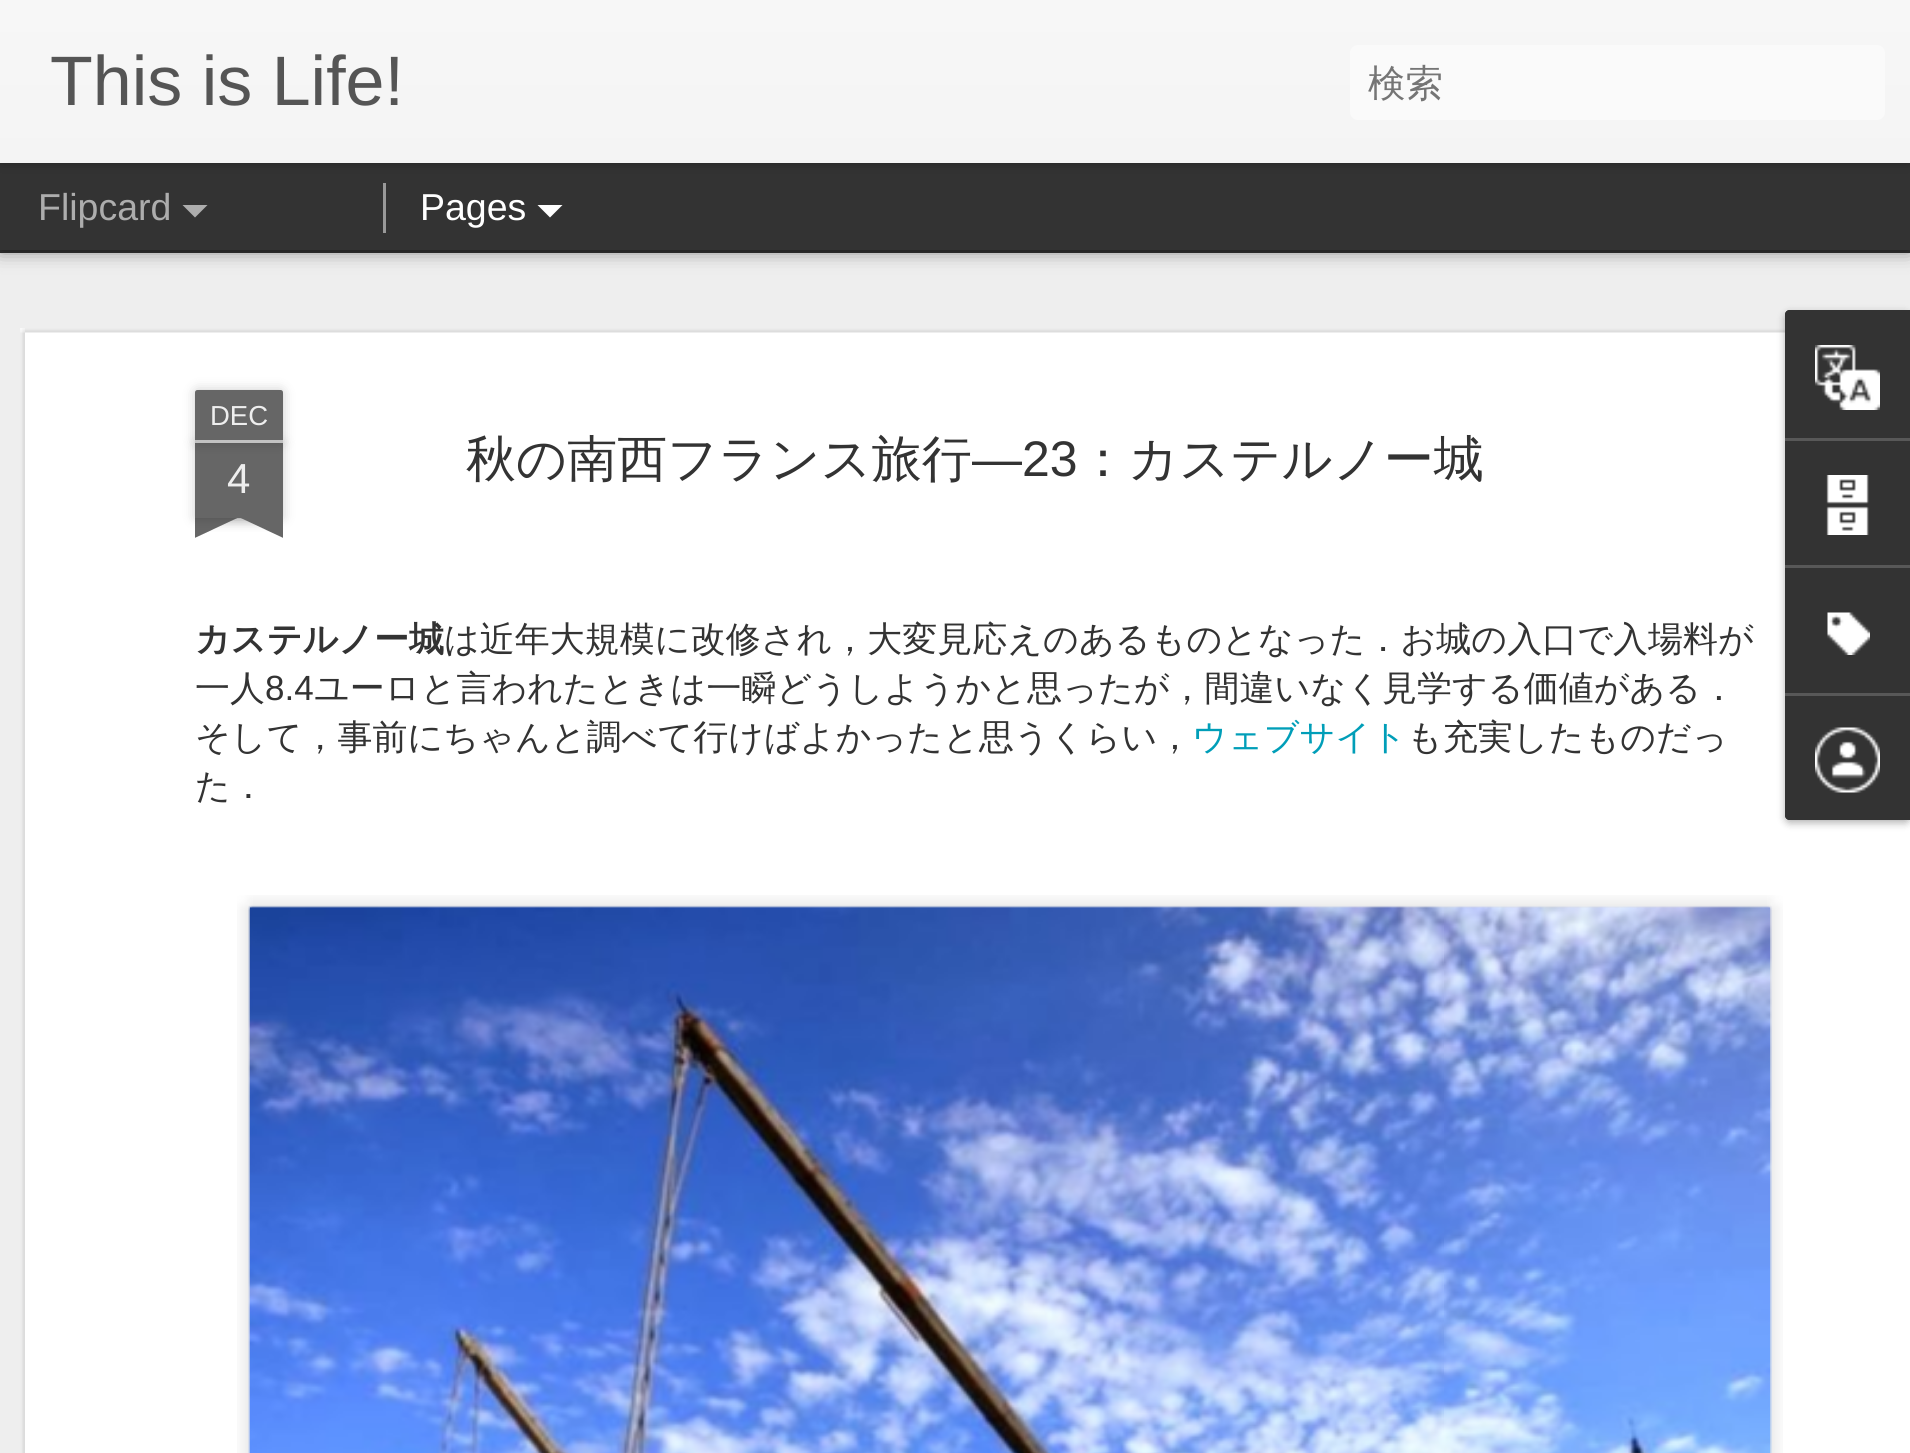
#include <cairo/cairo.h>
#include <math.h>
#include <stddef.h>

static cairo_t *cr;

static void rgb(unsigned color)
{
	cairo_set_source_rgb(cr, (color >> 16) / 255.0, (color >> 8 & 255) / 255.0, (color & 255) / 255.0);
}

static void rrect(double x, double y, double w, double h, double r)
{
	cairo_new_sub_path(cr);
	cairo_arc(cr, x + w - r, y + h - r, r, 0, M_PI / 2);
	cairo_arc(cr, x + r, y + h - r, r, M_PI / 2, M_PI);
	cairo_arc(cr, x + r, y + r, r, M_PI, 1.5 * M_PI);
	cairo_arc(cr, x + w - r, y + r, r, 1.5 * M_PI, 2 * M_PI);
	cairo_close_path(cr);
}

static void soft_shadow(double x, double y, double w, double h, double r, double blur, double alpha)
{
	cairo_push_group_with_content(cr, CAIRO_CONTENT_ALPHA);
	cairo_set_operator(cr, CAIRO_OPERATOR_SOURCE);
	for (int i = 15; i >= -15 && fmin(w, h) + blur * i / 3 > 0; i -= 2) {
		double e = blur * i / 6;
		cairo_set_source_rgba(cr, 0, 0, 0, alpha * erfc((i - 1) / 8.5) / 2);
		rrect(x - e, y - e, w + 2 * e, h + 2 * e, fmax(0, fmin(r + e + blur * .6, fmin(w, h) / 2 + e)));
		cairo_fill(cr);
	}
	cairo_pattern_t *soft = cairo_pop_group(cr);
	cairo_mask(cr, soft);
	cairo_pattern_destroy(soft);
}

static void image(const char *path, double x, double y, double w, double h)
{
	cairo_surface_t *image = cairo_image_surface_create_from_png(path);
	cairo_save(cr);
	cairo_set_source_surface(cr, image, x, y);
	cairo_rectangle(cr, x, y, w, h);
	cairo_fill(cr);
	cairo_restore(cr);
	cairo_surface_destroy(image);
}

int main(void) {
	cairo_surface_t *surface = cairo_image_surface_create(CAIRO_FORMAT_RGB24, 1910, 1453);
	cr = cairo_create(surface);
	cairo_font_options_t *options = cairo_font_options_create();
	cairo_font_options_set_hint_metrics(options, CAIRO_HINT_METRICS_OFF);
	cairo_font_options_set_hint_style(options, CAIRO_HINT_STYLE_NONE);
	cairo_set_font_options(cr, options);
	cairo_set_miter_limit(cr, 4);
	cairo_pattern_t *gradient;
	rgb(0x333333);
	cairo_paint(cr);
	rgb(0xeeeeee);
	cairo_rectangle(cr, 0, 253, 1910, 1200);
	cairo_fill(cr);
	rgb(0x000000);
	soft_shadow(0, 163, 1910, 87, 0, 10, 0.5);
	rgb(0x333333);
	cairo_rectangle(cr, 0, 163, 1910, 87);
	cairo_fill(cr);
	rgb(0x000000);
	soft_shadow(0, 0, 1910, 163, 0, 6, 0.3);
	gradient = cairo_pattern_create_linear(0, 0, 0, 163);
	cairo_pattern_add_color_stop_rgba(gradient, 0, 0.969, 0.969, 0.969, 1);
	cairo_pattern_add_color_stop_rgba(gradient, 1, 0.957, 0.957, 0.957, 1);
	cairo_set_source(cr, gradient);
	cairo_pattern_destroy(gradient);
	cairo_rectangle(cr, 0, 0, 1910, 163);
	cairo_fill(cr);
	rgb(0xfafafa);
	rrect(1350, 45, 535, 75, 8);
	cairo_fill(cr);
	rgb(0xadadad);
	cairo_new_path(cr);
	cairo_move_to(cr, 182.5, 205);
	cairo_line_to(cr, 207.5, 205);
	cairo_line_to(cr, 195, 217.5);
	cairo_close_path(cr);
	cairo_fill(cr);
	rgb(0x999999);
	cairo_rectangle(cr, 383, 183, 3, 50);
	cairo_fill(cr);
	rgb(0xffffff);
	cairo_new_path(cr);
	cairo_move_to(cr, 537.5, 205);
	cairo_line_to(cr, 562.5, 205);
	cairo_line_to(cr, 550, 217.5);
	cairo_close_path(cr);
	cairo_fill(cr);
	cairo_rectangle(cr, 20, 328, 1890, 1125);
	cairo_fill(cr);
	image("img/1.png", 20, 328, 1765, 1125);
	rgb(0x000000);
	soft_shadow(195, 443, 88, 75, 0, 6, 0.2);
	rgb(0x666666);
	cairo_rectangle(cr, 195, 443, 88, 75);
	cairo_fill(cr);
	rgb(0x000000);
	soft_shadow(195, 390, 88, 53, 2.5, 6, 0.2);
	rgb(0x666666);
	cairo_new_path(cr);
	cairo_move_to(cr, 197.5, 390);
	cairo_line_to(cr, 280.5, 390);
	cairo_curve_to(cr, 282, 390, 283, 391, 283, 392.5);
	cairo_line_to(cr, 283, 443);
	cairo_line_to(cr, 195, 443);
	cairo_line_to(cr, 195, 392.5);
	cairo_curve_to(cr, 195, 391, 196, 390, 197.5, 390);
	cairo_close_path(cr);
	cairo_fill(cr);
	rgb(0xc2c2c2);
	cairo_rectangle(cr, 195, 440, 88, 3);
	cairo_fill(cr);
	cairo_save(cr);
	cairo_rectangle(cr, 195, 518, 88, 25);
	cairo_clip(cr);
	rgb(0x000000);
	soft_shadow(173, 493, 125, 25, 0, 6.5, 0.2);
	cairo_restore(cr);
	cairo_save(cr);
	cairo_rectangle(cr, 195, 518, 88, 25);
	cairo_clip(cr);
	rgb(0x666666);
	cairo_new_path(cr);
	cairo_move_to(cr, 173, 520);
	cairo_line_to(cr, 286, 467);
	cairo_line_to(cr, 297, 490);
	cairo_line_to(cr, 184, 543);
	cairo_close_path(cr);
	cairo_fill(cr);
	cairo_restore(cr);
	cairo_save(cr);
	cairo_rectangle(cr, 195, 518, 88, 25);
	cairo_clip(cr);
	rgb(0x000000);
	soft_shadow(180, 493, 125, 25, 0, 6.5, 0.2);
	cairo_restore(cr);
	cairo_save(cr);
	cairo_rectangle(cr, 195, 518, 88, 25);
	cairo_clip(cr);
	rgb(0x666666);
	cairo_new_path(cr);
	cairo_move_to(cr, 191, 467);
	cairo_line_to(cr, 304, 520);
	cairo_line_to(cr, 294, 543);
	cairo_line_to(cr, 181, 490);
	cairo_close_path(cr);
	cairo_fill(cr);
	cairo_restore(cr);
	image("img/2.png", 237, 895, 1546, 558);
	image("img/3.png", 248, 905, 1524, 548);
	rgb(0x000000);
	soft_shadow(1785, 313, 125, 510, 5, 4, 0.3);
	rgb(0x333333);
	cairo_new_path(cr);
	cairo_move_to(cr, 1790, 310);
	cairo_line_to(cr, 1910, 310);
	cairo_line_to(cr, 1910, 820);
	cairo_line_to(cr, 1790, 820);
	cairo_curve_to(cr, 1787, 820, 1785, 818, 1785, 815);
	cairo_line_to(cr, 1785, 315);
	cairo_curve_to(cr, 1785, 312, 1787, 310, 1790, 310);
	cairo_close_path(cr);
	cairo_fill(cr);
	cairo_new_path(cr);
	cairo_move_to(cr, 1790, 310);
	cairo_line_to(cr, 1910, 310);
	cairo_line_to(cr, 1910, 438);
	cairo_line_to(cr, 1785, 438);
	cairo_line_to(cr, 1785, 315);
	cairo_curve_to(cr, 1785, 312, 1787, 310, 1790, 310);
	cairo_close_path(cr);
	cairo_fill(cr);
	image("img/4.png", 1815, 345, 65, 65);
	rgb(0x585858);
	cairo_rectangle(cr, 1785, 438, 125, 3);
	cairo_fill(cr);
	image("img/5.png", 1826, 475, 43, 60);
	cairo_rectangle(cr, 1785, 565, 125, 3);
	cairo_fill(cr);
	image("img/6.png", 1827, 612, 43, 43);
	rgb(0x333333);
	cairo_new_path(cr);
	cairo_move_to(cr, 1785, 693);
	cairo_line_to(cr, 1910, 693);
	cairo_line_to(cr, 1910, 820);
	cairo_line_to(cr, 1790, 820);
	cairo_curve_to(cr, 1787, 820, 1785, 818, 1785, 815);
	cairo_close_path(cr);
	cairo_fill(cr);
	rgb(0x585858);
	cairo_rectangle(cr, 1785, 693, 125, 3);
	cairo_fill(cr);
	image("img/7.png", 1815, 727, 65, 66);
	cairo_select_font_face(cr, "Liberation Sans", CAIRO_FONT_SLANT_NORMAL, CAIRO_FONT_WEIGHT_NORMAL);
	cairo_set_font_size(cr, 70);
	rgb(0x555555);
	cairo_move_to(cr, 50, 105);
	cairo_show_text(cr, "This is Life!");
	cairo_select_font_face(cr, "WenQuanYi Zen Hei Medium", CAIRO_FONT_SLANT_NORMAL, CAIRO_FONT_WEIGHT_NORMAL);
	cairo_set_font_size(cr, 37.5);
	rgb(0x757575);
	cairo_move_to(cr, 1368, 96);
	cairo_show_text(cr, "検索");
	cairo_select_font_face(cr, "Liberation Sans", CAIRO_FONT_SLANT_NORMAL, CAIRO_FONT_WEIGHT_NORMAL);
	rgb(0xadadad);
	cairo_move_to(cr, 38, 220);
	cairo_show_text(cr, "Flipcard");
	rgb(0xffffff);
	cairo_move_to(cr, 420, 220);
	cairo_show_text(cr, "Pages");
	cairo_set_font_size(cr, 27.5);
	rgb(0xeeeeee);
	cairo_move_to(cr, 210, 425);
	cairo_show_text(cr, "DEC");
	cairo_set_font_size(cr, 42);
	cairo_move_to(cr, 227, 493);
	cairo_show_text(cr, "4");
	cairo_select_font_face(cr, "WenQuanYi Zen Hei Medium", CAIRO_FONT_SLANT_NORMAL, CAIRO_FONT_WEIGHT_NORMAL);
	cairo_set_font_size(cr, 50);
	rgb(0x333333);
	cairo_move_to(cr, 466, 476);
	cairo_show_text(cr, "秋の南西フランス旅行");
	cairo_select_font_face(cr, "Liberation Sans", CAIRO_FONT_SLANT_NORMAL, CAIRO_FONT_WEIGHT_NORMAL);
	cairo_move_to(cr, 972, 476);
	cairo_show_text(cr, "—23");
	cairo_select_font_face(cr, "WenQuanYi Zen Hei Medium", CAIRO_FONT_SLANT_NORMAL, CAIRO_FONT_WEIGHT_NORMAL);
	cairo_move_to(cr, 1078, 476);
	cairo_show_text(cr, "：カステルノー城");
	cairo_select_font_face(cr, "WenQuanYi Zen Hei", CAIRO_FONT_SLANT_NORMAL, CAIRO_FONT_WEIGHT_BOLD);
	cairo_set_font_size(cr, 35);
	cairo_move_to(cr, 195, 651);
	cairo_show_text(cr, "カステルノー城");
	cairo_select_font_face(cr, "WenQuanYi Zen Hei Medium", CAIRO_FONT_SLANT_NORMAL, CAIRO_FONT_WEIGHT_NORMAL);
	cairo_move_to(cr, 444, 651);
	cairo_show_text(cr, "は近年大規模に改修され，大変見応えのあるものとなった．お城の入口で入場料が");
	cairo_move_to(cr, 195, 700);
	cairo_show_text(cr, "一人");
	cairo_select_font_face(cr, "Liberation Sans", CAIRO_FONT_SLANT_NORMAL, CAIRO_FONT_WEIGHT_NORMAL);
	cairo_move_to(cr, 265, 700);
	cairo_show_text(cr, "8.4");
	cairo_select_font_face(cr, "WenQuanYi Zen Hei Medium", CAIRO_FONT_SLANT_NORMAL, CAIRO_FONT_WEIGHT_NORMAL);
	cairo_move_to(cr, 314, 700);
	cairo_show_text(cr, "ユーロと言われたときは一瞬どうしようかと思ったが，間違いなく見学する価値がある．");
	cairo_move_to(cr, 195, 749);
	cairo_show_text(cr, "そして，事前にちゃんと調べて行けばよかったと思うくらい，");
	rgb(0x009eb8);
	cairo_move_to(cr, 1192, 749);
	cairo_show_text(cr, "ウェブサイト");
	rgb(0x333333);
	cairo_move_to(cr, 1407, 749);
	cairo_show_text(cr, "も充実したものだっ");
	cairo_move_to(cr, 195, 798);
	cairo_show_text(cr, "た．");
	cairo_surface_write_to_png(surface, "page.png");
	cairo_font_options_destroy(options);
	cairo_destroy(cr);
	cairo_surface_destroy(surface);
	return 0;
}
